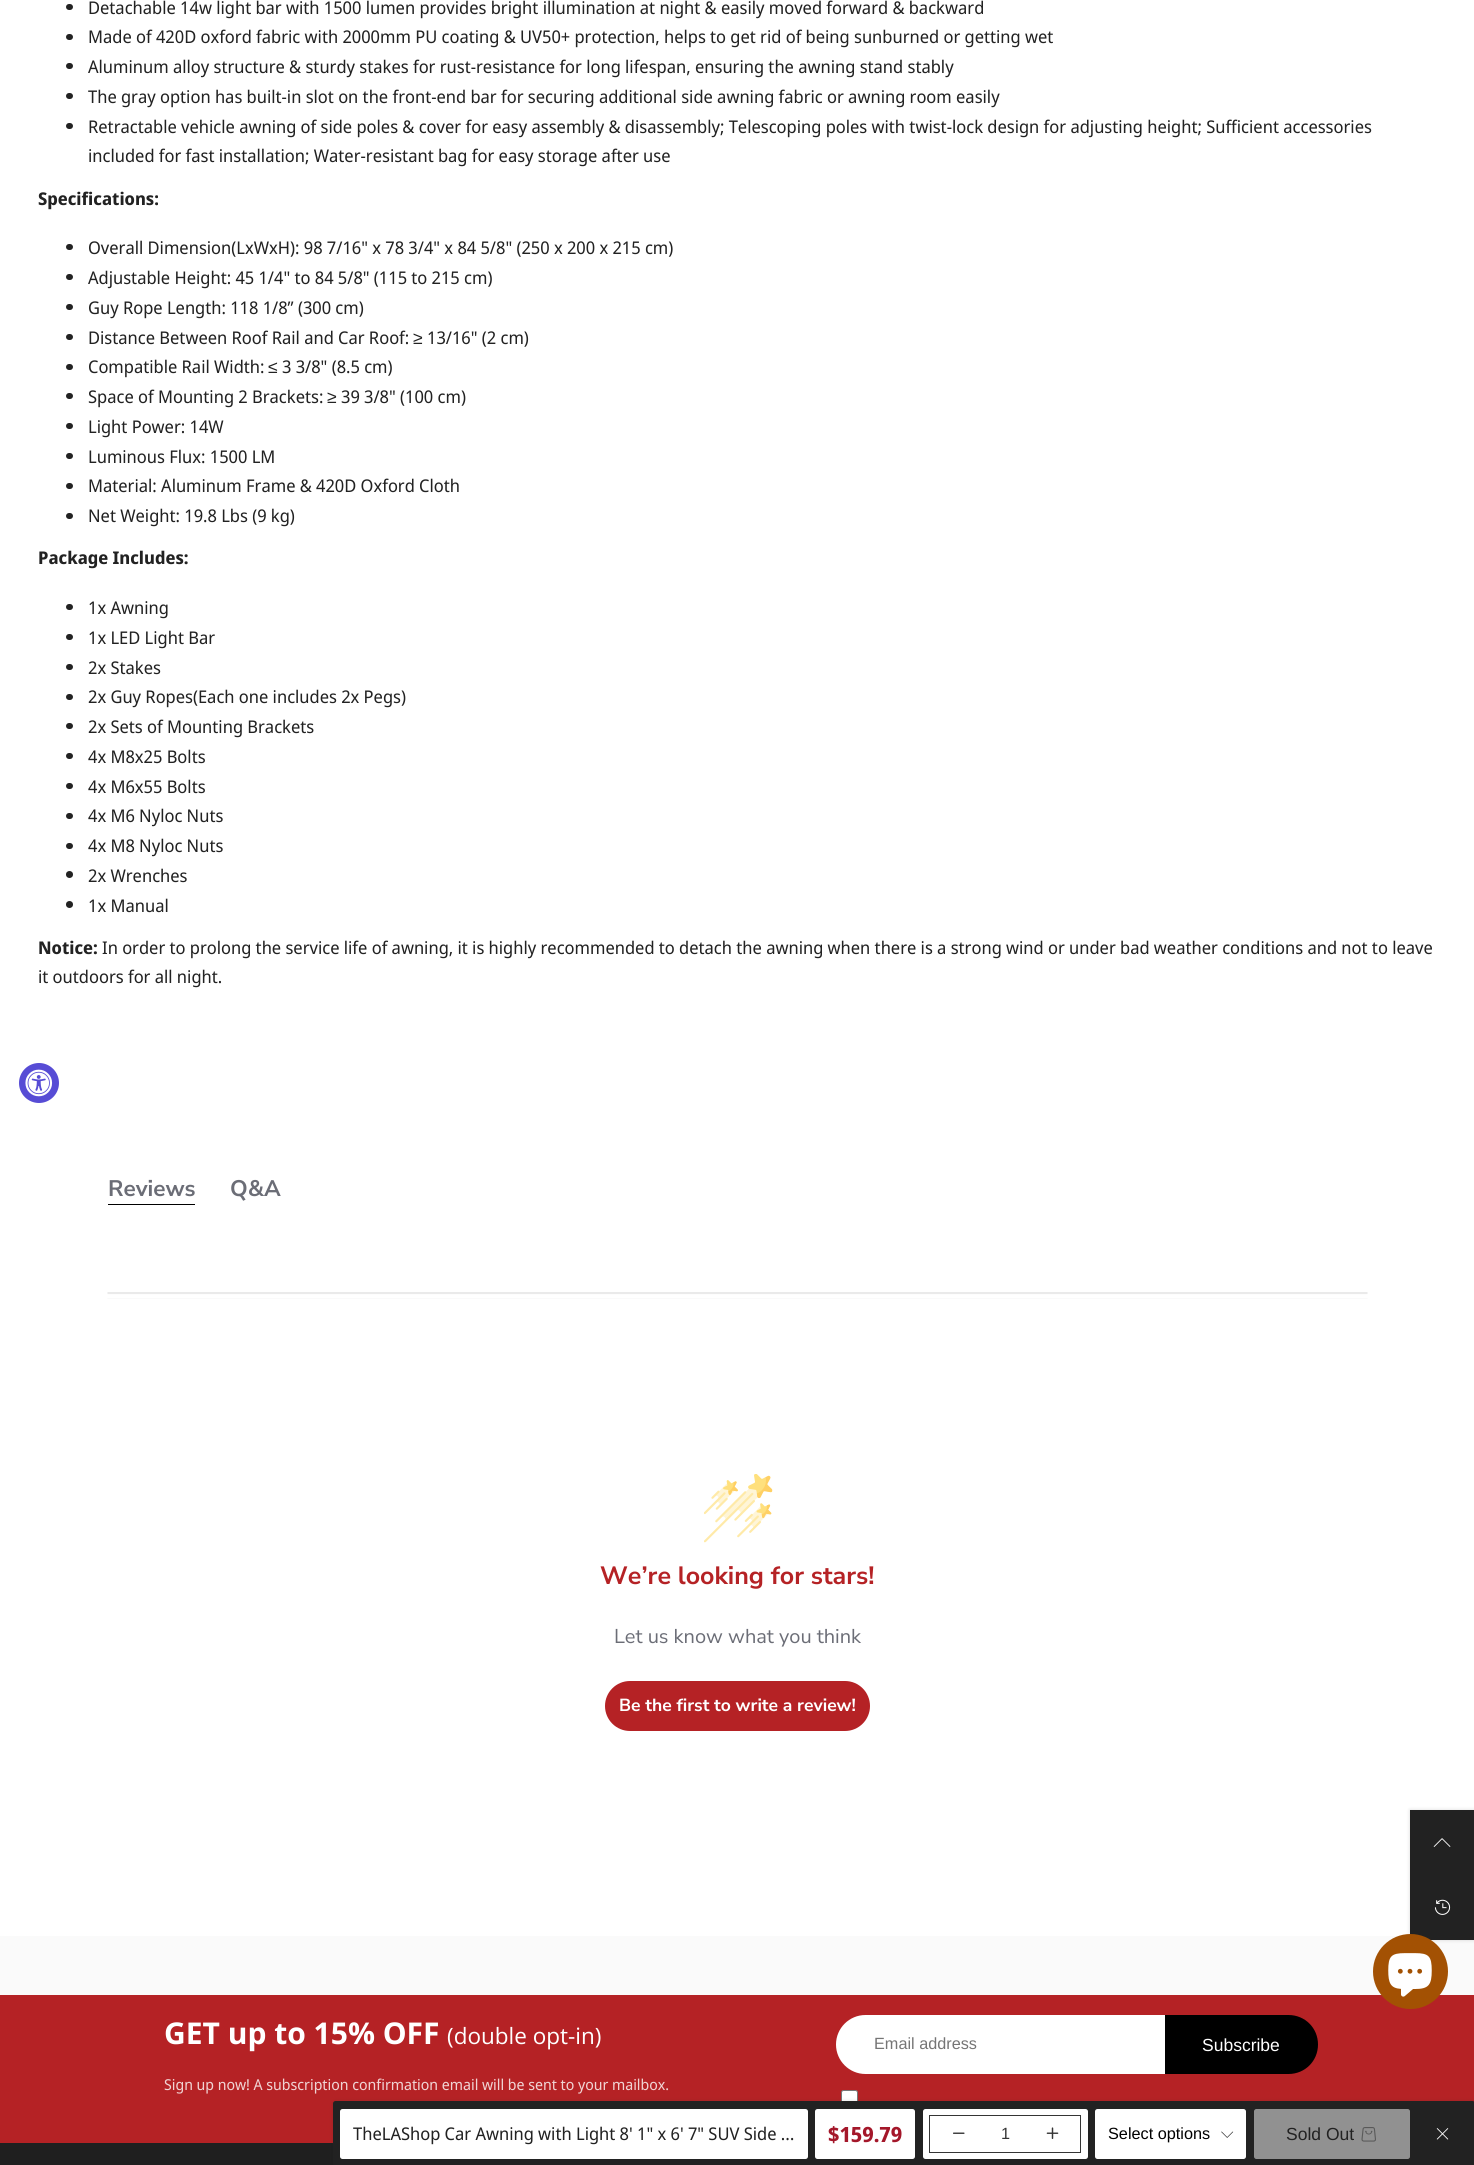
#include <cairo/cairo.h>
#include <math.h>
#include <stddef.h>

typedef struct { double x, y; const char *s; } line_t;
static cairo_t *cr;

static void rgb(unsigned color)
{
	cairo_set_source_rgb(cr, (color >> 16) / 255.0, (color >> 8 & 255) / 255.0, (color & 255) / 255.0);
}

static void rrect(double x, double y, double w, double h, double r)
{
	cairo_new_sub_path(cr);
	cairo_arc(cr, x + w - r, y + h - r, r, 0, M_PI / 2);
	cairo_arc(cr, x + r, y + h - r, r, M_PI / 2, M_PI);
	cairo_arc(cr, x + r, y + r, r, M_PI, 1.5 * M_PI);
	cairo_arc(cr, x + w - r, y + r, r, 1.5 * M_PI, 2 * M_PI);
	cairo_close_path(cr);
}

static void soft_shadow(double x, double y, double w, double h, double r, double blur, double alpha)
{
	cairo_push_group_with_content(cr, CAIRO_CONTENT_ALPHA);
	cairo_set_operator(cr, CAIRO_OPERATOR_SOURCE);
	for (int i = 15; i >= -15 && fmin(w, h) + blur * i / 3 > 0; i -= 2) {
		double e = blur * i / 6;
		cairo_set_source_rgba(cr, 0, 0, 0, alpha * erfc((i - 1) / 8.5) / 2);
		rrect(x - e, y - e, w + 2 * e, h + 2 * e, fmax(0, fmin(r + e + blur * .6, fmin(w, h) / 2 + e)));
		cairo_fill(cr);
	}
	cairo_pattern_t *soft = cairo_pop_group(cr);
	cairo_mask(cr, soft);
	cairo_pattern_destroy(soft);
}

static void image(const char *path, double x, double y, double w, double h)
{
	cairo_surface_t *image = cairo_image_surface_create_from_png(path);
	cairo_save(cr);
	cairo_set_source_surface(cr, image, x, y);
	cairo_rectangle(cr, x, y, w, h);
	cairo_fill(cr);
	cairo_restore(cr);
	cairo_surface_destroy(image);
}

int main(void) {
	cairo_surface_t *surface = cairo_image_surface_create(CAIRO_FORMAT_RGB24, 1474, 2165);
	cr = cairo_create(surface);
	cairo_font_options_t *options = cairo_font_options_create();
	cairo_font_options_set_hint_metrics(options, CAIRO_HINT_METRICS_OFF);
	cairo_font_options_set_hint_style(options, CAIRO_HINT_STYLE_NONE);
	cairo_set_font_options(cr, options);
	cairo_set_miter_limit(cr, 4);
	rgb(0xffffff);
	cairo_paint(cr);
	rgb(0x222222);
	rrect(66, 4, 7, 6, 3);
	cairo_fill(cr);
	rrect(66, 34, 7, 6, 3);
	cairo_fill(cr);
	rrect(66, 63, 7, 6, 3);
	cairo_fill(cr);
	rrect(66, 93, 7, 6, 3);
	cairo_fill(cr);
	rrect(66, 123, 7, 6, 3);
	cairo_fill(cr);
	rrect(66, 244, 7, 6, 3);
	cairo_fill(cr);
	rrect(66, 274, 7, 6, 3);
	cairo_fill(cr);
	rrect(66, 304, 7, 6, 3);
	cairo_fill(cr);
	rrect(66, 334, 7, 6, 3);
	cairo_fill(cr);
	rrect(66, 364, 7, 6, 3);
	cairo_fill(cr);
	rrect(66, 393, 7, 6, 3);
	cairo_fill(cr);
	rrect(66, 423, 7, 6, 3);
	cairo_fill(cr);
	rrect(66, 453, 7, 6, 3);
	cairo_fill(cr);
	rrect(66, 483, 7, 6, 3);
	cairo_fill(cr);
	rrect(66, 513, 7, 6, 3);
	cairo_fill(cr);
	rrect(66, 604, 7, 6, 3);
	cairo_fill(cr);
	rrect(66, 634, 7, 6, 3);
	cairo_fill(cr);
	rrect(66, 664, 7, 6, 3);
	cairo_fill(cr);
	rrect(66, 694, 7, 6, 3);
	cairo_fill(cr);
	rrect(66, 723, 7, 6, 3);
	cairo_fill(cr);
	rrect(66, 753, 7, 6, 3);
	cairo_fill(cr);
	rrect(66, 783, 7, 6, 3);
	cairo_fill(cr);
	rrect(66, 813, 7, 6, 3);
	cairo_fill(cr);
	rrect(66, 843, 7, 6, 3);
	cairo_fill(cr);
	cairo_arc(cr, 69.5, 874.5, 3.5, 0, 2 * M_PI);
	cairo_fill(cr);
	cairo_arc(cr, 69.5, 904.5, 3.5, 0, 2 * M_PI);
	cairo_fill(cr);
	rgb(0x000000);
	cairo_rectangle(cr, 108, 1204, 87, 1);
	cairo_fill(cr);
	image("img/1.png", 107, 1292, 1261, 7);
	image("img/2.png", 704, 1474, 69, 69);
	rgb(0xb52225);
	rrect(605, 1681, 265, 50, 25);
	cairo_fill(cr);
	cairo_rectangle(cr, 0, 1995, 1474, 148);
	cairo_fill(cr);
	rgb(0xffffff);
	rrect(841.5, 2090.5, 16, 15, 2);
	cairo_fill_preserve(cr);
	rgb(0x767676);
	cairo_set_line_width(cr, 1);
	cairo_stroke(cr);
	rgb(0x1f1f1f);
	cairo_rectangle(cr, 0, 2143, 334, 22);
	cairo_fill(cr);
	rgb(0x222222);
	soft_shadow(333, 2101, 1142, 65, 2.5, 2, 0.15);
	rgb(0x222222);
	rrect(333, 2101, 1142, 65, 2.5);
	cairo_fill(cr);
	rgb(0xffffff);
	rrect(340, 2109, 468, 50, 2.5);
	cairo_fill(cr);
	rrect(815, 2109, 100, 50, 2.5);
	cairo_fill(cr);
	rrect(923, 2109, 165, 50, 2.5);
	cairo_fill(cr);
	cairo_rectangle(cr, 929.5, 2115.5, 151, 37);
	rgb(0x353535);
	cairo_stroke(cr);
	image("img/3.png", 953, 2132, 12, 2);
	image("img/4.png", 1046, 2127, 13, 12);
	rgb(0xffffff);
	rrect(1095, 2109, 151, 50, 2.5);
	cairo_fill(cr);
	image("img/5.png", 1221, 2131, 13, 7);
	rgb(0x919191);
	rrect(1254.5, 2109.5, 155, 49, 2);
	cairo_fill_preserve(cr);
	cairo_stroke(cr);
	image("img/6.png", 1361, 2127, 15, 15);
	image("img/7.png", 1436, 2128, 13, 12);
	rgb(0x574cd5);
	cairo_arc(cr, 39, 1083, 20, 0, 2 * M_PI);
	cairo_fill(cr);
	image("img/8.png", 25, 1069, 28, 28);
	rgb(0xfafafa);
	cairo_rectangle(cr, 0, 1936, 1474, 59);
	cairo_fill(cr);
	rgb(0x000000);
	soft_shadow(1410, 1810, 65, 130, 0, 2, 0.15);
	rgb(0x222222);
	cairo_rectangle(cr, 1410, 1810, 64, 130);
	cairo_fill(cr);
	image("img/9.png", 1433, 1838, 18, 9);
	image("img/10.png", 1434, 1899, 17, 16);
	rgb(0xa35103);
	cairo_arc(cr, 1410.5, 1971.5, 37.5, 0, 2 * M_PI);
	cairo_fill(cr);
	image("img/11.png", 1388, 1953, 44, 44);
	rgb(0xffffff);
	rrect(836, 2015, 475, 59, 29.5);
	cairo_fill(cr);
	rgb(0x000000);
	cairo_new_path(cr);
	cairo_move_to(cr, 1165, 2015);
	cairo_line_to(cr, 1288.5, 2015);
	cairo_curve_to(cr, 1305, 2015, 1318, 2028, 1318, 2044.5);
	cairo_curve_to(cr, 1318, 2061, 1305, 2074, 1288.5, 2074);
	cairo_line_to(cr, 1165, 2074);
	cairo_close_path(cr);
	cairo_fill(cr);
	cairo_select_font_face(cr, "Noto Sans Display", CAIRO_FONT_SLANT_NORMAL, CAIRO_FONT_WEIGHT_NORMAL);
	cairo_set_font_size(cr, 17.5);
	rgb(0x222222);
	{
		static const line_t items[] = {
			{88, 14, "Detachable 14w light bar with 1500 lumen provides bright illumination at night & easily moved forward & backward"},
			{88, 43, "Made of 420D oxford fabric with 2000mm PU coating & UV50+ protection, helps to get rid of being sunburned or getting wet"},
			{88, 73, "Aluminum alloy structure & sturdy stakes for rust-resistance for long lifespan, ensuring the awning stand stably"},
			{88, 103, "The gray option has built-in slot on the front-end bar for securing additional side awning fabric or awning room easily"},
			{88, 133, "Retractable vehicle awning of side poles & cover for easy assembly & disassembly; Telescoping poles with twist-lock design for adjusting height; Sufficient accessories"},
			{88, 162, "included for fast installation; Water-resistant bag for easy storage after use"},
		};
		for (size_t i = 0; i < sizeof items / sizeof *items; i++) {
			cairo_move_to(cr, items[i].x, items[i].y);
			cairo_show_text(cr, items[i].s);
		}
	}
	cairo_select_font_face(cr, "Noto Sans Display", CAIRO_FONT_SLANT_NORMAL, CAIRO_FONT_WEIGHT_BOLD);
	cairo_move_to(cr, 38, 205);
	cairo_show_text(cr, "Specifications:");
	cairo_select_font_face(cr, "Noto Sans Display", CAIRO_FONT_SLANT_NORMAL, CAIRO_FONT_WEIGHT_NORMAL);
	{
		static const line_t items[] = {
			{88, 254, "Overall Dimension(LxWxH): 98 7/16\" x 78 3/4\" x 84 5/8\" (250 x 200 x 215 cm)"},
			{88, 284, "Adjustable Height: 45 1/4\" to 84 5/8\" (115 to 215 cm)"},
			{88, 314, "Guy Rope Length: 118 1/8” (300 cm)"},
			{88, 344, "Distance Between Roof Rail and Car Roof:"},
		};
		for (size_t i = 0; i < sizeof items / sizeof *items; i++) {
			cairo_move_to(cr, items[i].x, items[i].y);
			cairo_show_text(cr, items[i].s);
		}
	}
	cairo_select_font_face(cr, "Liberation Sans", CAIRO_FONT_SLANT_NORMAL, CAIRO_FONT_WEIGHT_NORMAL);
	cairo_move_to(cr, 413, 344);
	cairo_show_text(cr, "≥");
	cairo_select_font_face(cr, "Noto Sans Display", CAIRO_FONT_SLANT_NORMAL, CAIRO_FONT_WEIGHT_NORMAL);
	cairo_move_to(cr, 427, 344);
	cairo_show_text(cr, "13/16\" (2 cm)");
	cairo_move_to(cr, 88, 373);
	cairo_show_text(cr, "Compatible Rail Width:");
	cairo_select_font_face(cr, "Liberation Sans", CAIRO_FONT_SLANT_NORMAL, CAIRO_FONT_WEIGHT_NORMAL);
	cairo_move_to(cr, 268, 373);
	cairo_show_text(cr, "≤");
	cairo_select_font_face(cr, "Noto Sans Display", CAIRO_FONT_SLANT_NORMAL, CAIRO_FONT_WEIGHT_NORMAL);
	cairo_move_to(cr, 282, 373);
	cairo_show_text(cr, "3 3/8\" (8.5 cm)");
	cairo_move_to(cr, 88, 403);
	cairo_show_text(cr, "Space of Mounting 2 Brackets:");
	cairo_select_font_face(cr, "Liberation Sans", CAIRO_FONT_SLANT_NORMAL, CAIRO_FONT_WEIGHT_NORMAL);
	cairo_move_to(cr, 327, 403);
	cairo_show_text(cr, "≥");
	cairo_select_font_face(cr, "Noto Sans Display", CAIRO_FONT_SLANT_NORMAL, CAIRO_FONT_WEIGHT_NORMAL);
	{
		static const line_t items[] = {
			{341, 403, "39 3/8\" (100 cm)"},
			{88, 433, "Light Power: 14W"},
			{88, 463, "Luminous Flux: 1500 LM"},
			{88, 492, "Material: Aluminum Frame & 420D Oxford Cloth"},
			{88, 522, "Net Weight: 19.8 Lbs (9 kg)"},
		};
		for (size_t i = 0; i < sizeof items / sizeof *items; i++) {
			cairo_move_to(cr, items[i].x, items[i].y);
			cairo_show_text(cr, items[i].s);
		}
	}
	cairo_select_font_face(cr, "Noto Sans Display", CAIRO_FONT_SLANT_NORMAL, CAIRO_FONT_WEIGHT_BOLD);
	cairo_move_to(cr, 38, 564);
	cairo_show_text(cr, "Package Includes:");
	cairo_select_font_face(cr, "Noto Sans Display", CAIRO_FONT_SLANT_NORMAL, CAIRO_FONT_WEIGHT_NORMAL);
	{
		static const line_t items[] = {
			{88, 614, "1x Awning"},
			{88, 644, "1x LED Light Bar"},
			{88, 674, "2x Stakes"},
			{88, 703, "2x Guy Ropes(Each one includes 2x Pegs)"},
			{88, 733, "2x Sets of Mounting Brackets"},
			{88, 763, "4x M8x25 Bolts"},
			{88, 793, "4x M6x55 Bolts"},
			{88, 822, "4x M6 Nyloc Nuts"},
			{88, 852, "4x M8 Nyloc Nuts"},
			{88, 882, "2x Wrenches"},
			{88, 912, "1x Manual"},
		};
		for (size_t i = 0; i < sizeof items / sizeof *items; i++) {
			cairo_move_to(cr, items[i].x, items[i].y);
			cairo_show_text(cr, items[i].s);
		}
	}
	cairo_select_font_face(cr, "Noto Sans Display", CAIRO_FONT_SLANT_NORMAL, CAIRO_FONT_WEIGHT_BOLD);
	cairo_move_to(cr, 38, 954);
	cairo_show_text(cr, "Notice:");
	cairo_select_font_face(cr, "Noto Sans Display", CAIRO_FONT_SLANT_NORMAL, CAIRO_FONT_WEIGHT_NORMAL);
	cairo_move_to(cr, 102, 954);
	cairo_show_text(cr, "In order to prolong the service life of awning, it is highly recommended to detach the awning when there is a strong wind or under bad weather conditions and not to leave");
	cairo_move_to(cr, 38, 983);
	cairo_show_text(cr, "it outdoors for all night.");
	cairo_select_font_face(cr, "Nunito Sans ExtraLight", CAIRO_FONT_SLANT_NORMAL, CAIRO_FONT_WEIGHT_NORMAL);
	cairo_set_font_size(cr, 22.5);
	rgb(0x6b6d76);
	cairo_move_to(cr, 108, 1196);
	cairo_show_text(cr, "Reviews");
	cairo_move_to(cr, 230, 1196);
	cairo_show_text(cr, "Q&A");
	cairo_set_font_size(cr, 25);
	rgb(0xb52225);
	cairo_move_to(cr, 600, 1584);
	cairo_show_text(cr, "We’re looking for stars!");
	cairo_select_font_face(cr, "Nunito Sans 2 ExtraLight", CAIRO_FONT_SLANT_NORMAL, CAIRO_FONT_WEIGHT_NORMAL);
	cairo_set_font_size(cr, 20);
	rgb(0x6b6d76);
	cairo_move_to(cr, 614, 1643);
	cairo_show_text(cr, "Let us know what you think");
	cairo_select_font_face(cr, "Nunito Sans ExtraLight", CAIRO_FONT_SLANT_NORMAL, CAIRO_FONT_WEIGHT_NORMAL);
	cairo_set_font_size(cr, 17.5);
	rgb(0xffffff);
	cairo_move_to(cr, 619, 1711);
	cairo_show_text(cr, "Be the first to write a review!");
	cairo_select_font_face(cr, "Noto Sans Display", CAIRO_FONT_SLANT_NORMAL, CAIRO_FONT_WEIGHT_NORMAL);
	rgb(0x222222);
	cairo_move_to(cr, 353, 2140);
	cairo_show_text(cr, "TheLAShop Car Awning with Light 8' 1\" x 6' 7\" SUV Side …");
	cairo_select_font_face(cr, "Noto Sans Display", CAIRO_FONT_SLANT_NORMAL, CAIRO_FONT_WEIGHT_BOLD);
	cairo_set_font_size(cr, 21);
	rgb(0xa4172a);
	cairo_move_to(cr, 828, 2142);
	cairo_show_text(cr, "$159.79");
	cairo_select_font_face(cr, "Liberation Sans", CAIRO_FONT_SLANT_NORMAL, CAIRO_FONT_WEIGHT_NORMAL);
	cairo_set_font_size(cr, 16.25);
	rgb(0x353535);
	cairo_move_to(cr, 1001, 2139);
	cairo_show_text(cr, "1");
	rgb(0x000000);
	cairo_move_to(cr, 1108, 2139);
	cairo_show_text(cr, "Select options");
	cairo_set_font_size(cr, 17.5);
	rgb(0x222222);
	cairo_move_to(cr, 1286, 2140);
	cairo_show_text(cr, "Sold Out");
	cairo_select_font_face(cr, "Open Sans", CAIRO_FONT_SLANT_NORMAL, CAIRO_FONT_WEIGHT_BOLD);
	cairo_set_font_size(cr, 30);
	rgb(0xffffff);
	cairo_move_to(cr, 164, 2044);
	cairo_show_text(cr, "GET up to 15% OFF");
	cairo_select_font_face(cr, "Open Sans", CAIRO_FONT_SLANT_NORMAL, CAIRO_FONT_WEIGHT_NORMAL);
	cairo_set_font_size(cr, 22.5);
	cairo_move_to(cr, 447, 2044);
	cairo_show_text(cr, "(double opt-in)");
	cairo_select_font_face(cr, "Noto Sans Display", CAIRO_FONT_SLANT_NORMAL, CAIRO_FONT_WEIGHT_NORMAL);
	cairo_set_font_size(cr, 15);
	rgb(0xf0d3d3);
	cairo_move_to(cr, 164, 2090);
	cairo_show_text(cr, "Sign up now! A subscription confirmation email will be sent to your mailbox.");
	cairo_select_font_face(cr, "Liberation Sans", CAIRO_FONT_SLANT_NORMAL, CAIRO_FONT_WEIGHT_NORMAL);
	cairo_set_font_size(cr, 16.25);
	rgb(0x757575);
	cairo_move_to(cr, 874, 2049);
	cairo_show_text(cr, "Email address");
	cairo_set_font_size(cr, 17.5);
	rgb(0xffffff);
	cairo_move_to(cr, 1202, 2051);
	cairo_show_text(cr, "Subscribe");
	cairo_surface_write_to_png(surface, "page.png");
	cairo_font_options_destroy(options);
	cairo_destroy(cr);
	cairo_surface_destroy(surface);
	return 0;
}
